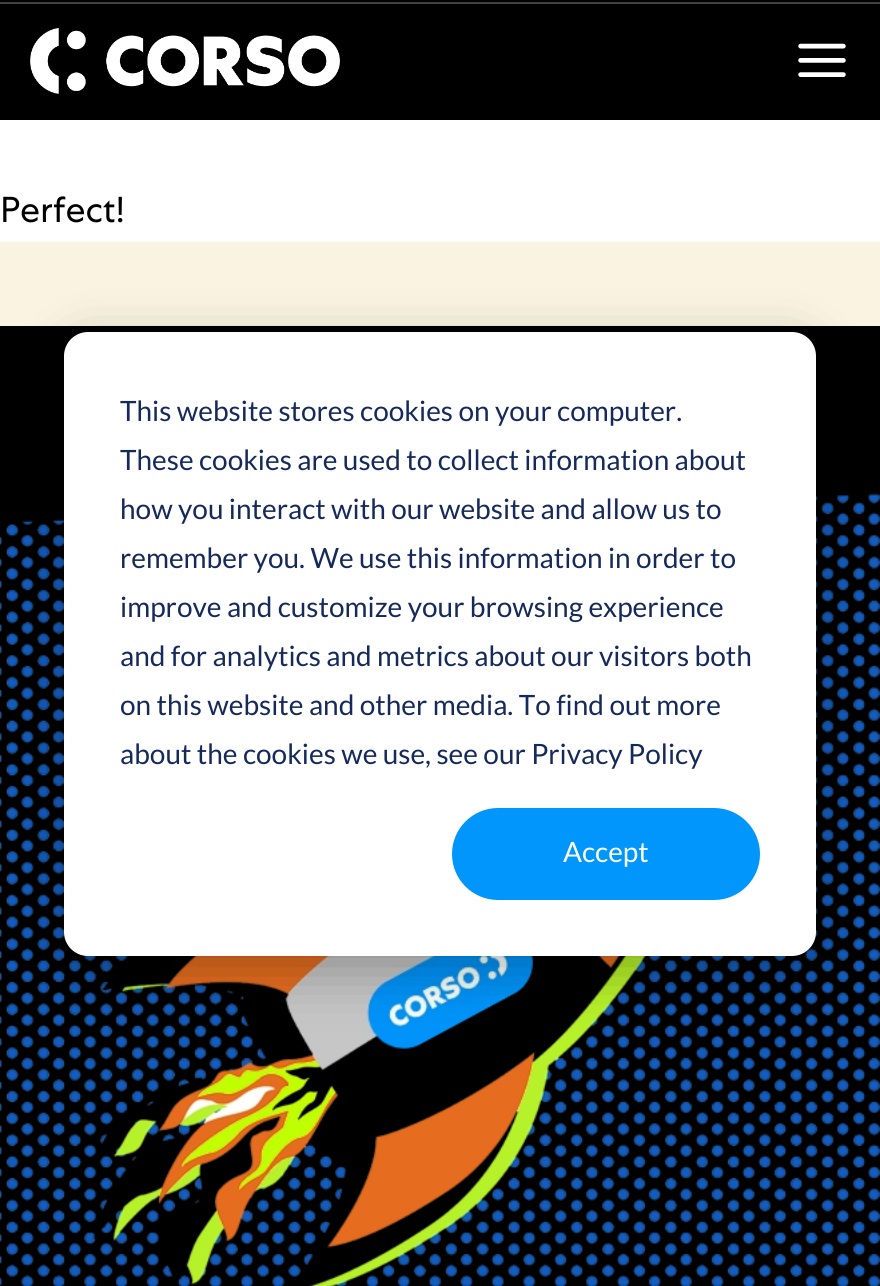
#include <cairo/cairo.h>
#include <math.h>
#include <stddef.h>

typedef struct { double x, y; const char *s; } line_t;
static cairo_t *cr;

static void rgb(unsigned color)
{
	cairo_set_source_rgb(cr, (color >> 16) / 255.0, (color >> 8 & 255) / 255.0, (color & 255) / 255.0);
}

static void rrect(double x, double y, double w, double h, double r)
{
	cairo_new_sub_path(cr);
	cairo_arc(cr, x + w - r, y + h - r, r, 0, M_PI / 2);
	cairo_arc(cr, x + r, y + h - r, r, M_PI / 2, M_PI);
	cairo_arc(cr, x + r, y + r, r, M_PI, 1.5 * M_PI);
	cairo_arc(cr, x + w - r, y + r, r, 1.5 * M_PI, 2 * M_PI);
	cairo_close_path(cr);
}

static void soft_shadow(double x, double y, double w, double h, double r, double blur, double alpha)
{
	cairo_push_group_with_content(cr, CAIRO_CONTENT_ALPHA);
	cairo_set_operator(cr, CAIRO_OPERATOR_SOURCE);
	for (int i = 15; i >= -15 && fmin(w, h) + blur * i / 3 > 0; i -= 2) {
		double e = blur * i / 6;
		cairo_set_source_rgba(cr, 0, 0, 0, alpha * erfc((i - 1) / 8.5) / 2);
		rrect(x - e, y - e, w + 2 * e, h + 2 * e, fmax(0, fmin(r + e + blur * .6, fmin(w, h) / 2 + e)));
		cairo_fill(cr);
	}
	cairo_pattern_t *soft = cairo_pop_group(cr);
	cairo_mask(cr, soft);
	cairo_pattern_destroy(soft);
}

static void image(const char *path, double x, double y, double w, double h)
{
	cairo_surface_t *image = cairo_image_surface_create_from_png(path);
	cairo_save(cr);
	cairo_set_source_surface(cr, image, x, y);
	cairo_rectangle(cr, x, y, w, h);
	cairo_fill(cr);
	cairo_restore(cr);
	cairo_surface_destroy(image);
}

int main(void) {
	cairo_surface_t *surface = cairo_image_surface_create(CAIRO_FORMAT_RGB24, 880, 1286);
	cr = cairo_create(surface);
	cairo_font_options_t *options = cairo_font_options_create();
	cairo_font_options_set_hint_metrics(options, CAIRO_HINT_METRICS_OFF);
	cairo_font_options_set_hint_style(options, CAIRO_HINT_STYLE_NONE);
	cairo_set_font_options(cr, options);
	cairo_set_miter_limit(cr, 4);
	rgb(0xfaf3e1);
	cairo_paint(cr);
	rgb(0x000000);
	cairo_rectangle(cr, 0, 0, 880, 120);
	cairo_fill(cr);
	rgb(0x424242);
	cairo_rectangle(cr, 0, 2, 880, 2);
	cairo_fill(cr);
	image("img/1.png", 30, 28, 310, 66);
	image("img/2.png", 798, 43, 48, 34);
	rgb(0xffffff);
	cairo_rectangle(cr, 0, 120, 880, 122);
	cairo_fill(cr);
	rgb(0x000000);
	cairo_rectangle(cr, 0, 326, 880, 960);
	cairo_fill(cr);
	image("img/3.png", 0, 493, 880, 793);
	rgb(0x000000);
	soft_shadow(64, 348, 752, 624, 24, 28, 0.28);
	rgb(0xffffff);
	rrect(64, 332, 752, 624, 24);
	cairo_fill(cr);
	rgb(0x0096fc);
	rrect(453, 809, 306, 90, 45);
	cairo_fill_preserve(cr);
	cairo_stroke(cr);
	cairo_select_font_face(cr, "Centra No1", CAIRO_FONT_SLANT_NORMAL, CAIRO_FONT_WEIGHT_NORMAL);
	cairo_set_font_size(cr, 36);
	rgb(0x000000);
	cairo_move_to(cr, 0, 222);
	cairo_show_text(cr, "Perfect!");
	cairo_select_font_face(cr, "Lato", CAIRO_FONT_SLANT_NORMAL, CAIRO_FONT_WEIGHT_NORMAL);
	cairo_set_font_size(cr, 28);
	rgb(0x15295a);
	{
		static const line_t items[] = {
			{120, 421, "This website stores cookies on your computer."},
			{120, 470, "These cookies are used to collect information about"},
			{120, 519, "how you interact with our website and allow us to"},
			{120, 568, "remember you. We use this information in order to"},
			{120, 617, "improve and customize your browsing experience"},
			{120, 666, "and for analytics and metrics about our visitors both"},
			{120, 715, "on this website and other media. To find out more"},
			{120, 764, "about the cookies we use, see our Privacy Policy"},
		};
		for (size_t i = 0; i < sizeof items / sizeof *items; i++) {
			cairo_move_to(cr, items[i].x, items[i].y);
			cairo_show_text(cr, items[i].s);
		}
	}
	rgb(0xffffff);
	cairo_move_to(cr, 563, 862);
	cairo_show_text(cr, "Accept");
	cairo_surface_write_to_png(surface, "page.png");
	cairo_font_options_destroy(options);
	cairo_destroy(cr);
	cairo_surface_destroy(surface);
	return 0;
}
